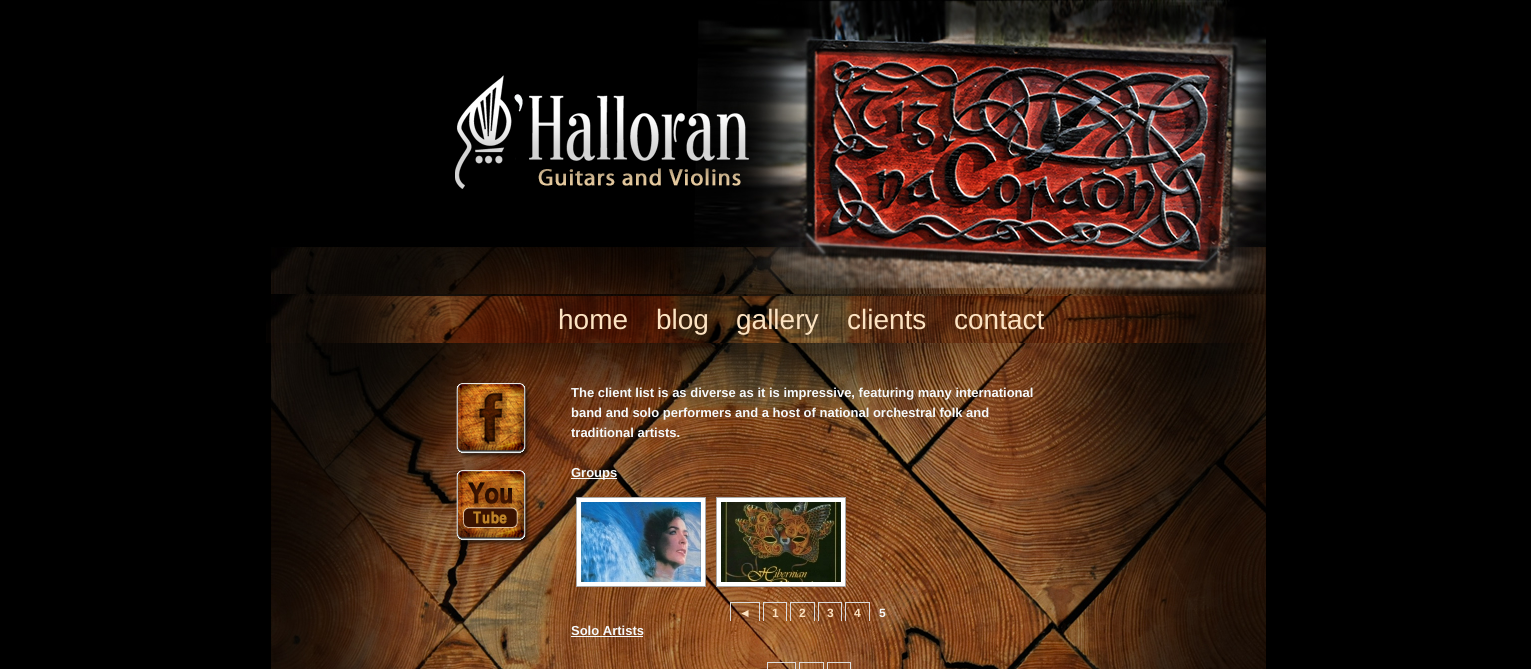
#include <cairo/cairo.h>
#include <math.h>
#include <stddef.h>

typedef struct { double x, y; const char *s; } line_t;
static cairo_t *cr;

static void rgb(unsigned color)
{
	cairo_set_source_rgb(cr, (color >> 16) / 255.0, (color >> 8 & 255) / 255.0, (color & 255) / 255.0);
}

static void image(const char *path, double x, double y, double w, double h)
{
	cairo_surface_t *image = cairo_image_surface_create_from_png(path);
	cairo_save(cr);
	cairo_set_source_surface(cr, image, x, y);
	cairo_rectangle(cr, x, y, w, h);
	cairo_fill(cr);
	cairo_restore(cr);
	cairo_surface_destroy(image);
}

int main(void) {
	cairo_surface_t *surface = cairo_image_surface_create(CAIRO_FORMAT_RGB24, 1531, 669);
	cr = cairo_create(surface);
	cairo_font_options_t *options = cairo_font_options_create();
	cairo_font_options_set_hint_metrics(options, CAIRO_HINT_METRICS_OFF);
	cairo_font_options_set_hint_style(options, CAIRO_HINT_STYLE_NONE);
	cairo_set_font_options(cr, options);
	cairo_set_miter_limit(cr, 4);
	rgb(0x000000);
	cairo_paint(cr);
	image("img/1.png", 271, 294, 995, 375);
	image("img/2.png", 271, 0, 995, 294);
	image("img/3.png", 455, 75, 327, 114);
	image("img/4.png", 266, 296, 991, 47);
	image("img/5.png", 456, 383, 75, 76);
	image("img/6.png", 456, 470, 75, 76);
	rgb(0xf6fafc);
	cairo_rectangle(cr, 571, 478, 46, 1);
	cairo_fill(cr);
	rgb(0xffffff);
	cairo_rectangle(cr, 576.5, 497.5, 129, 89);
	cairo_fill_preserve(cr);
	rgb(0xa9a9a9);
	cairo_set_line_width(cr, 1);
	cairo_stroke(cr);
	image("img/7.png", 581, 502, 120, 80);
	rgb(0xffffff);
	cairo_rectangle(cr, 716.5, 497.5, 129, 89);
	cairo_fill_preserve(cr);
	rgb(0xa9a9a9);
	cairo_stroke(cr);
	image("img/8.png", 721, 502, 120, 80);
	cairo_save(cr);
	cairo_rectangle(cr, 571, 493, 480, 128);
	cairo_clip(cr);
	cairo_rectangle(cr, 730.5, 602.5, 29, 20);
	rgb(0xdddddd);
	cairo_stroke(cr);
	cairo_rectangle(cr, 763.5, 602.5, 23, 20);
	cairo_stroke(cr);
	cairo_rectangle(cr, 790.5, 602.5, 24, 20);
	cairo_stroke(cr);
	cairo_rectangle(cr, 818.5, 602.5, 23, 20);
	cairo_stroke(cr);
	cairo_rectangle(cr, 845.5, 602.5, 24, 20);
	cairo_stroke(cr);
	cairo_restore(cr);
	rgb(0xf6fafc);
	cairo_rectangle(cr, 571, 636, 72, 1);
	cairo_fill(cr);
	cairo_rectangle(cr, 767.5, 662.5, 28, 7);
	rgb(0xdddddd);
	cairo_stroke(cr);
	cairo_rectangle(cr, 799.5, 662.5, 24, 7);
	cairo_stroke(cr);
	cairo_rectangle(cr, 827.5, 662.5, 23, 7);
	cairo_stroke(cr);
	cairo_select_font_face(cr, "Liberation Sans", CAIRO_FONT_SLANT_NORMAL, CAIRO_FONT_WEIGHT_NORMAL);
	cairo_set_font_size(cr, 28);
	rgb(0xfce3c2);
	{
		static const line_t items[] = {
			{558, 329, "home"},
			{656, 329, "blog"},
			{736, 329, "gallery"},
			{847, 329, "clients"},
			{954, 329, "contact"},
		};
		for (size_t i = 0; i < sizeof items / sizeof *items; i++) {
			cairo_move_to(cr, items[i].x, items[i].y);
			cairo_show_text(cr, items[i].s);
		}
	}
	cairo_select_font_face(cr, "Liberation Sans", CAIRO_FONT_SLANT_NORMAL, CAIRO_FONT_WEIGHT_BOLD);
	cairo_set_font_size(cr, 13);
	rgb(0xf6fafc);
	{
		static const line_t items[] = {
			{571, 397, "The client list is as diverse as it is impressive, featuring many international"},
			{571, 417, "band and solo performers and a host of national orchestral folk and"},
			{571, 437, "traditional artists."},
			{571, 477, "Groups"},
		};
		for (size_t i = 0; i < sizeof items / sizeof *items; i++) {
			cairo_move_to(cr, items[i].x, items[i].y);
			cairo_show_text(cr, items[i].s);
		}
	}
	cairo_set_font_size(cr, 12);
	rgb(0xfce3c2);
	{
		static const line_t items[] = {
			{739, 617, "◄"},
			{772, 617, "1"},
			{799, 617, "2"},
			{827, 617, "3"},
			{854, 617, "4"},
		};
		for (size_t i = 0; i < sizeof items / sizeof *items; i++) {
			cairo_move_to(cr, items[i].x, items[i].y);
			cairo_show_text(cr, items[i].s);
		}
	}
	rgb(0xf6fafc);
	cairo_move_to(cr, 879, 617);
	cairo_show_text(cr, "5");
	cairo_set_font_size(cr, 13);
	cairo_move_to(cr, 571, 635);
	cairo_show_text(cr, "Solo Artists");
	cairo_surface_write_to_png(surface, "page.png");
	cairo_font_options_destroy(options);
	cairo_destroy(cr);
	cairo_surface_destroy(surface);
	return 0;
}
